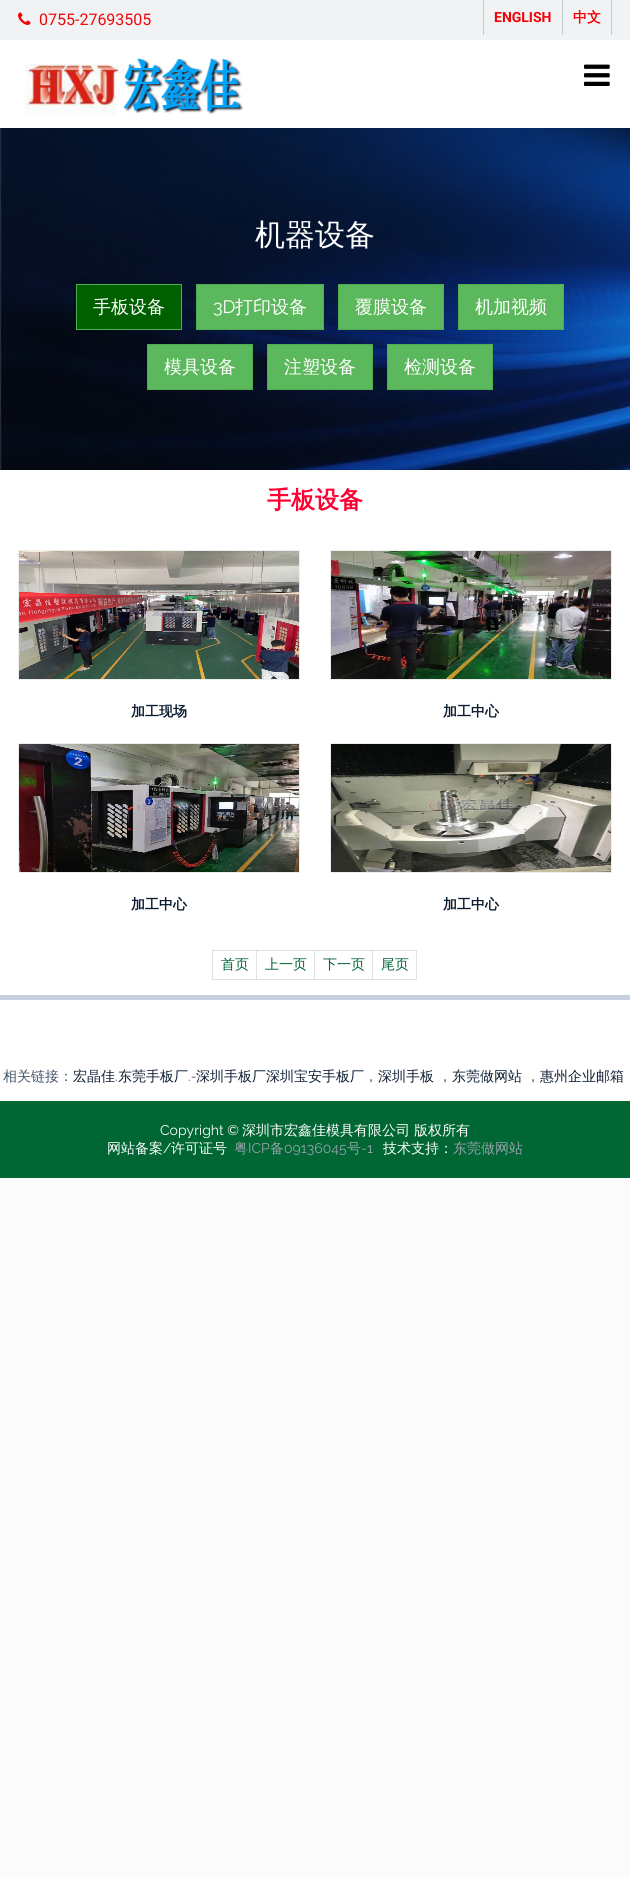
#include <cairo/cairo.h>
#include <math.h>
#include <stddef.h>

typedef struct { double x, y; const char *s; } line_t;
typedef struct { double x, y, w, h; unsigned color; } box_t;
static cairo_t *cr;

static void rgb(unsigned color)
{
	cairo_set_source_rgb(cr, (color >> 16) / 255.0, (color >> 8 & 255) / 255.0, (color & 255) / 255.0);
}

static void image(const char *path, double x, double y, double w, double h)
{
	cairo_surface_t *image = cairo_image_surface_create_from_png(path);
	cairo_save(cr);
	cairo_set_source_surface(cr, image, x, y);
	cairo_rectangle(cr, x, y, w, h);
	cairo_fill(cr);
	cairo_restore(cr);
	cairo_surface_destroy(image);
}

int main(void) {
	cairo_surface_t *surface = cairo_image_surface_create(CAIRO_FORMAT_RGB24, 630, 1877);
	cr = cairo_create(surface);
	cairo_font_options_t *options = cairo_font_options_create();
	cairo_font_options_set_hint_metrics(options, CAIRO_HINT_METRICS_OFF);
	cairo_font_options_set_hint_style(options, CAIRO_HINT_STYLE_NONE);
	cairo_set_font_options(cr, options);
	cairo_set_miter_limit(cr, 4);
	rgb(0xfbfbfb);
	cairo_paint(cr);
	rgb(0xffffff);
	cairo_rectangle(cr, 0, 40, 630, 88);
	cairo_fill(cr);
	rgb(0xf1f2f3);
	cairo_rectangle(cr, 0, 0, 630, 40);
	cairo_fill(cr);
	image("img/1.png", 18, 12, 13, 13);
	{
		static const box_t items[] = {
			{611, 0, 1, 35, 0xc3c9ce},
			{483, 0, 1, 35, 0xc3c9ce},
			{562, 0, 1, 35, 0xc3c9ce},
		};
		for (size_t i = 0; i < sizeof items / sizeof *items; i++) {
			rgb(items[i].color);
			cairo_rectangle(cr, items[i].x, items[i].y, items[i].w, items[i].h);
			cairo_fill(cr);
		}
	}
	image("img/2.png", 25, 58, 219, 58);
	image("img/3.png", 584, 64, 26, 22);
	image("img/4.png", 0, 128, 630, 342);
	rgb(0x006000);
	cairo_rectangle(cr, 76.5, 284.5, 105, 45);
	cairo_fill_preserve(cr);
	rgb(0x4cae4c);
	cairo_set_line_width(cr, 1);
	cairo_stroke(cr);
	rgb(0x5cb85c);
	cairo_rectangle(cr, 196.5, 284.5, 127, 45);
	cairo_fill_preserve(cr);
	rgb(0x4cae4c);
	cairo_stroke(cr);
	rgb(0x5cb85c);
	cairo_rectangle(cr, 338.5, 284.5, 105, 45);
	cairo_fill_preserve(cr);
	rgb(0x4cae4c);
	cairo_stroke(cr);
	rgb(0x5cb85c);
	cairo_rectangle(cr, 458.5, 284.5, 105, 45);
	cairo_fill_preserve(cr);
	rgb(0x4cae4c);
	cairo_stroke(cr);
	rgb(0x5cb85c);
	cairo_rectangle(cr, 147.5, 344.5, 105, 45);
	cairo_fill_preserve(cr);
	rgb(0x4cae4c);
	cairo_stroke(cr);
	rgb(0x5cb85c);
	cairo_rectangle(cr, 267.5, 344.5, 105, 45);
	cairo_fill_preserve(cr);
	rgb(0x4cae4c);
	cairo_stroke(cr);
	rgb(0x5cb85c);
	cairo_rectangle(cr, 387.5, 344.5, 105, 45);
	cairo_fill_preserve(cr);
	rgb(0x4cae4c);
	cairo_stroke(cr);
	rgb(0xffffff);
	cairo_rectangle(cr, 0, 470, 630, 525);
	cairo_fill(cr);
	cairo_rectangle(cr, 18.5, 550.5, 281, 129);
	rgb(0xededed);
	cairo_stroke(cr);
	image("img/5.png", 19, 551, 280, 128);
	cairo_rectangle(cr, 330.5, 550.5, 281, 129);
	cairo_stroke(cr);
	image("img/6.png", 331, 551, 280, 128);
	cairo_rectangle(cr, 18.5, 743.5, 281, 129);
	cairo_stroke(cr);
	image("img/7.png", 19, 744, 280, 128);
	cairo_rectangle(cr, 330.5, 743.5, 281, 129);
	cairo_stroke(cr);
	image("img/8.png", 331, 744, 280, 128);
	cairo_rectangle(cr, 212.5, 950.5, 44, 29);
	rgb(0xdee2e6);
	cairo_stroke(cr);
	cairo_rectangle(cr, 256.5, 950.5, 58, 29);
	cairo_stroke(cr);
	cairo_rectangle(cr, 314.5, 950.5, 58, 29);
	cairo_stroke(cr);
	cairo_rectangle(cr, 372.5, 950.5, 44, 29);
	cairo_stroke(cr);
	{
		static const box_t items[] = {
			{0, 1000, 630, 101, 0xffffff},
			{0, 995, 630, 5, 0xc7d0dc},
			{0, 1101, 630, 77, 0x006633},
		};
		for (size_t i = 0; i < sizeof items / sizeof *items; i++) {
			rgb(items[i].color);
			cairo_rectangle(cr, items[i].x, items[i].y, items[i].w, items[i].h);
			cairo_fill(cr);
		}
	}
	cairo_select_font_face(cr, "Roboto", CAIRO_FONT_SLANT_NORMAL, CAIRO_FONT_WEIGHT_NORMAL);
	cairo_set_font_size(cr, 16);
	rgb(0xef070b);
	cairo_move_to(cr, 39, 25);
	cairo_show_text(cr, "0755-27693505");
	cairo_select_font_face(cr, "Roboto", CAIRO_FONT_SLANT_NORMAL, CAIRO_FONT_WEIGHT_BOLD);
	cairo_set_font_size(cr, 14);
	rgb(0xf10004);
	cairo_move_to(cr, 494, 22);
	cairo_show_text(cr, "ENGLISH");
	cairo_select_font_face(cr, "WenQuanYi Zen Hei", CAIRO_FONT_SLANT_NORMAL, CAIRO_FONT_WEIGHT_BOLD);
	cairo_move_to(cr, 573, 22);
	cairo_show_text(cr, "中文");
	cairo_select_font_face(cr, "WenQuanYi Zen Hei Medium", CAIRO_FONT_SLANT_NORMAL, CAIRO_FONT_WEIGHT_NORMAL);
	cairo_set_font_size(cr, 30);
	rgb(0xffffff);
	cairo_move_to(cr, 255, 245);
	cairo_show_text(cr, "机器设备");
	cairo_set_font_size(cr, 18);
	cairo_move_to(cr, 93, 313);
	cairo_show_text(cr, "手板设备");
	cairo_select_font_face(cr, "Raleway", CAIRO_FONT_SLANT_NORMAL, CAIRO_FONT_WEIGHT_NORMAL);
	cairo_move_to(cr, 213, 313);
	cairo_show_text(cr, "3D");
	cairo_select_font_face(cr, "WenQuanYi Zen Hei Medium", CAIRO_FONT_SLANT_NORMAL, CAIRO_FONT_WEIGHT_NORMAL);
	{
		static const line_t items[] = {
			{235, 313, "打印设备"},
			{355, 313, "覆膜设备"},
			{475, 313, "机加视频"},
			{164, 373, "模具设备"},
			{284, 373, "注塑设备"},
			{404, 373, "检测设备"},
		};
		for (size_t i = 0; i < sizeof items / sizeof *items; i++) {
			cairo_move_to(cr, items[i].x, items[i].y);
			cairo_show_text(cr, items[i].s);
		}
	}
	cairo_select_font_face(cr, "WenQuanYi Zen Hei", CAIRO_FONT_SLANT_NORMAL, CAIRO_FONT_WEIGHT_BOLD);
	cairo_set_font_size(cr, 24);
	rgb(0xff0033);
	cairo_move_to(cr, 267, 508);
	cairo_show_text(cr, "手板设备");
	cairo_set_font_size(cr, 14);
	rgb(0x0d1d31);
	{
		static const line_t items[] = {
			{131, 716, "加工现场"},
			{443, 716, "加工中心"},
			{131, 909, "加工中心"},
			{443, 909, "加工中心"},
		};
		for (size_t i = 0; i < sizeof items / sizeof *items; i++) {
			cairo_move_to(cr, items[i].x, items[i].y);
			cairo_show_text(cr, items[i].s);
		}
	}
	cairo_select_font_face(cr, "WenQuanYi Zen Hei Medium", CAIRO_FONT_SLANT_NORMAL, CAIRO_FONT_WEIGHT_NORMAL);
	rgb(0x006633);
	{
		static const line_t items[] = {
			{221, 969, "首页"},
			{265, 969, "上一页"},
			{323, 969, "下一页"},
			{381, 969, "尾页"},
		};
		for (size_t i = 0; i < sizeof items / sizeof *items; i++) {
			cairo_move_to(cr, items[i].x, items[i].y);
			cairo_show_text(cr, items[i].s);
		}
	}
	rgb(0x435469);
	cairo_move_to(cr, 3, 1081);
	cairo_show_text(cr, "相关链接：");
	rgb(0x0d1d31);
	cairo_move_to(cr, 73, 1081);
	cairo_show_text(cr, "宏晶佳");
	cairo_select_font_face(cr, "Raleway", CAIRO_FONT_SLANT_NORMAL, CAIRO_FONT_WEIGHT_NORMAL);
	rgb(0x435469);
	cairo_move_to(cr, 115, 1081);
	cairo_show_text(cr, ".");
	cairo_select_font_face(cr, "WenQuanYi Zen Hei Medium", CAIRO_FONT_SLANT_NORMAL, CAIRO_FONT_WEIGHT_NORMAL);
	rgb(0x0d1d31);
	cairo_move_to(cr, 118, 1081);
	cairo_show_text(cr, "东莞手板厂");
	cairo_select_font_face(cr, "Raleway", CAIRO_FONT_SLANT_NORMAL, CAIRO_FONT_WEIGHT_NORMAL);
	rgb(0x435469);
	cairo_move_to(cr, 188, 1081);
	cairo_show_text(cr, ".-");
	cairo_select_font_face(cr, "WenQuanYi Zen Hei Medium", CAIRO_FONT_SLANT_NORMAL, CAIRO_FONT_WEIGHT_NORMAL);
	rgb(0x0d1d31);
	cairo_move_to(cr, 196, 1081);
	cairo_show_text(cr, "深圳手板厂深圳宝安手板厂");
	rgb(0x435469);
	cairo_move_to(cr, 364, 1081);
	cairo_show_text(cr, "，");
	rgb(0x0d1d31);
	cairo_move_to(cr, 378, 1081);
	cairo_show_text(cr, "深圳手板");
	rgb(0x435469);
	cairo_move_to(cr, 438, 1081);
	cairo_show_text(cr, "，");
	rgb(0x0d1d31);
	cairo_move_to(cr, 452, 1081);
	cairo_show_text(cr, "东莞做网站");
	rgb(0x435469);
	cairo_move_to(cr, 526, 1081);
	cairo_show_text(cr, "，");
	rgb(0x0d1d31);
	cairo_move_to(cr, 540, 1081);
	cairo_show_text(cr, "惠州企业邮箱");
	cairo_select_font_face(cr, "Raleway", CAIRO_FONT_SLANT_NORMAL, CAIRO_FONT_WEIGHT_NORMAL);
	rgb(0xffffff);
	cairo_move_to(cr, 160, 1135);
	cairo_show_text(cr, "Copyright ©");
	cairo_select_font_face(cr, "WenQuanYi Zen Hei Medium", CAIRO_FONT_SLANT_NORMAL, CAIRO_FONT_WEIGHT_NORMAL);
	{
		static const line_t items[] = {
			{242, 1135, "深圳市宏鑫佳模具有限公司"},
			{414, 1135, "版权所有"},
			{107, 1153, "网站备案"},
		};
		for (size_t i = 0; i < sizeof items / sizeof *items; i++) {
			cairo_move_to(cr, items[i].x, items[i].y);
			cairo_show_text(cr, items[i].s);
		}
	}
	cairo_select_font_face(cr, "Raleway", CAIRO_FONT_SLANT_NORMAL, CAIRO_FONT_WEIGHT_NORMAL);
	cairo_move_to(cr, 163, 1153);
	cairo_show_text(cr, "/");
	cairo_select_font_face(cr, "WenQuanYi Zen Hei Medium", CAIRO_FONT_SLANT_NORMAL, CAIRO_FONT_WEIGHT_NORMAL);
	cairo_move_to(cr, 171, 1153);
	cairo_show_text(cr, "许可证号");
	rgb(0x96a0aa);
	cairo_move_to(cr, 234, 1153);
	cairo_show_text(cr, "粤");
	cairo_select_font_face(cr, "Raleway", CAIRO_FONT_SLANT_NORMAL, CAIRO_FONT_WEIGHT_NORMAL);
	cairo_move_to(cr, 248, 1153);
	cairo_show_text(cr, "ICP");
	cairo_select_font_face(cr, "WenQuanYi Zen Hei Medium", CAIRO_FONT_SLANT_NORMAL, CAIRO_FONT_WEIGHT_NORMAL);
	cairo_move_to(cr, 270, 1153);
	cairo_show_text(cr, "备");
	cairo_select_font_face(cr, "Raleway", CAIRO_FONT_SLANT_NORMAL, CAIRO_FONT_WEIGHT_NORMAL);
	cairo_move_to(cr, 284, 1153);
	cairo_show_text(cr, "09136045");
	cairo_select_font_face(cr, "WenQuanYi Zen Hei Medium", CAIRO_FONT_SLANT_NORMAL, CAIRO_FONT_WEIGHT_NORMAL);
	cairo_move_to(cr, 347, 1153);
	cairo_show_text(cr, "号");
	cairo_select_font_face(cr, "Raleway", CAIRO_FONT_SLANT_NORMAL, CAIRO_FONT_WEIGHT_NORMAL);
	cairo_move_to(cr, 361, 1153);
	cairo_show_text(cr, "-1");
	cairo_select_font_face(cr, "WenQuanYi Zen Hei Medium", CAIRO_FONT_SLANT_NORMAL, CAIRO_FONT_WEIGHT_NORMAL);
	rgb(0xffffff);
	cairo_move_to(cr, 383, 1153);
	cairo_show_text(cr, "技术支持：");
	rgb(0x96a0aa);
	cairo_move_to(cr, 453, 1153);
	cairo_show_text(cr, "东莞做网站");
	cairo_surface_write_to_png(surface, "page.png");
	cairo_font_options_destroy(options);
	cairo_destroy(cr);
	cairo_surface_destroy(surface);
	return 0;
}
